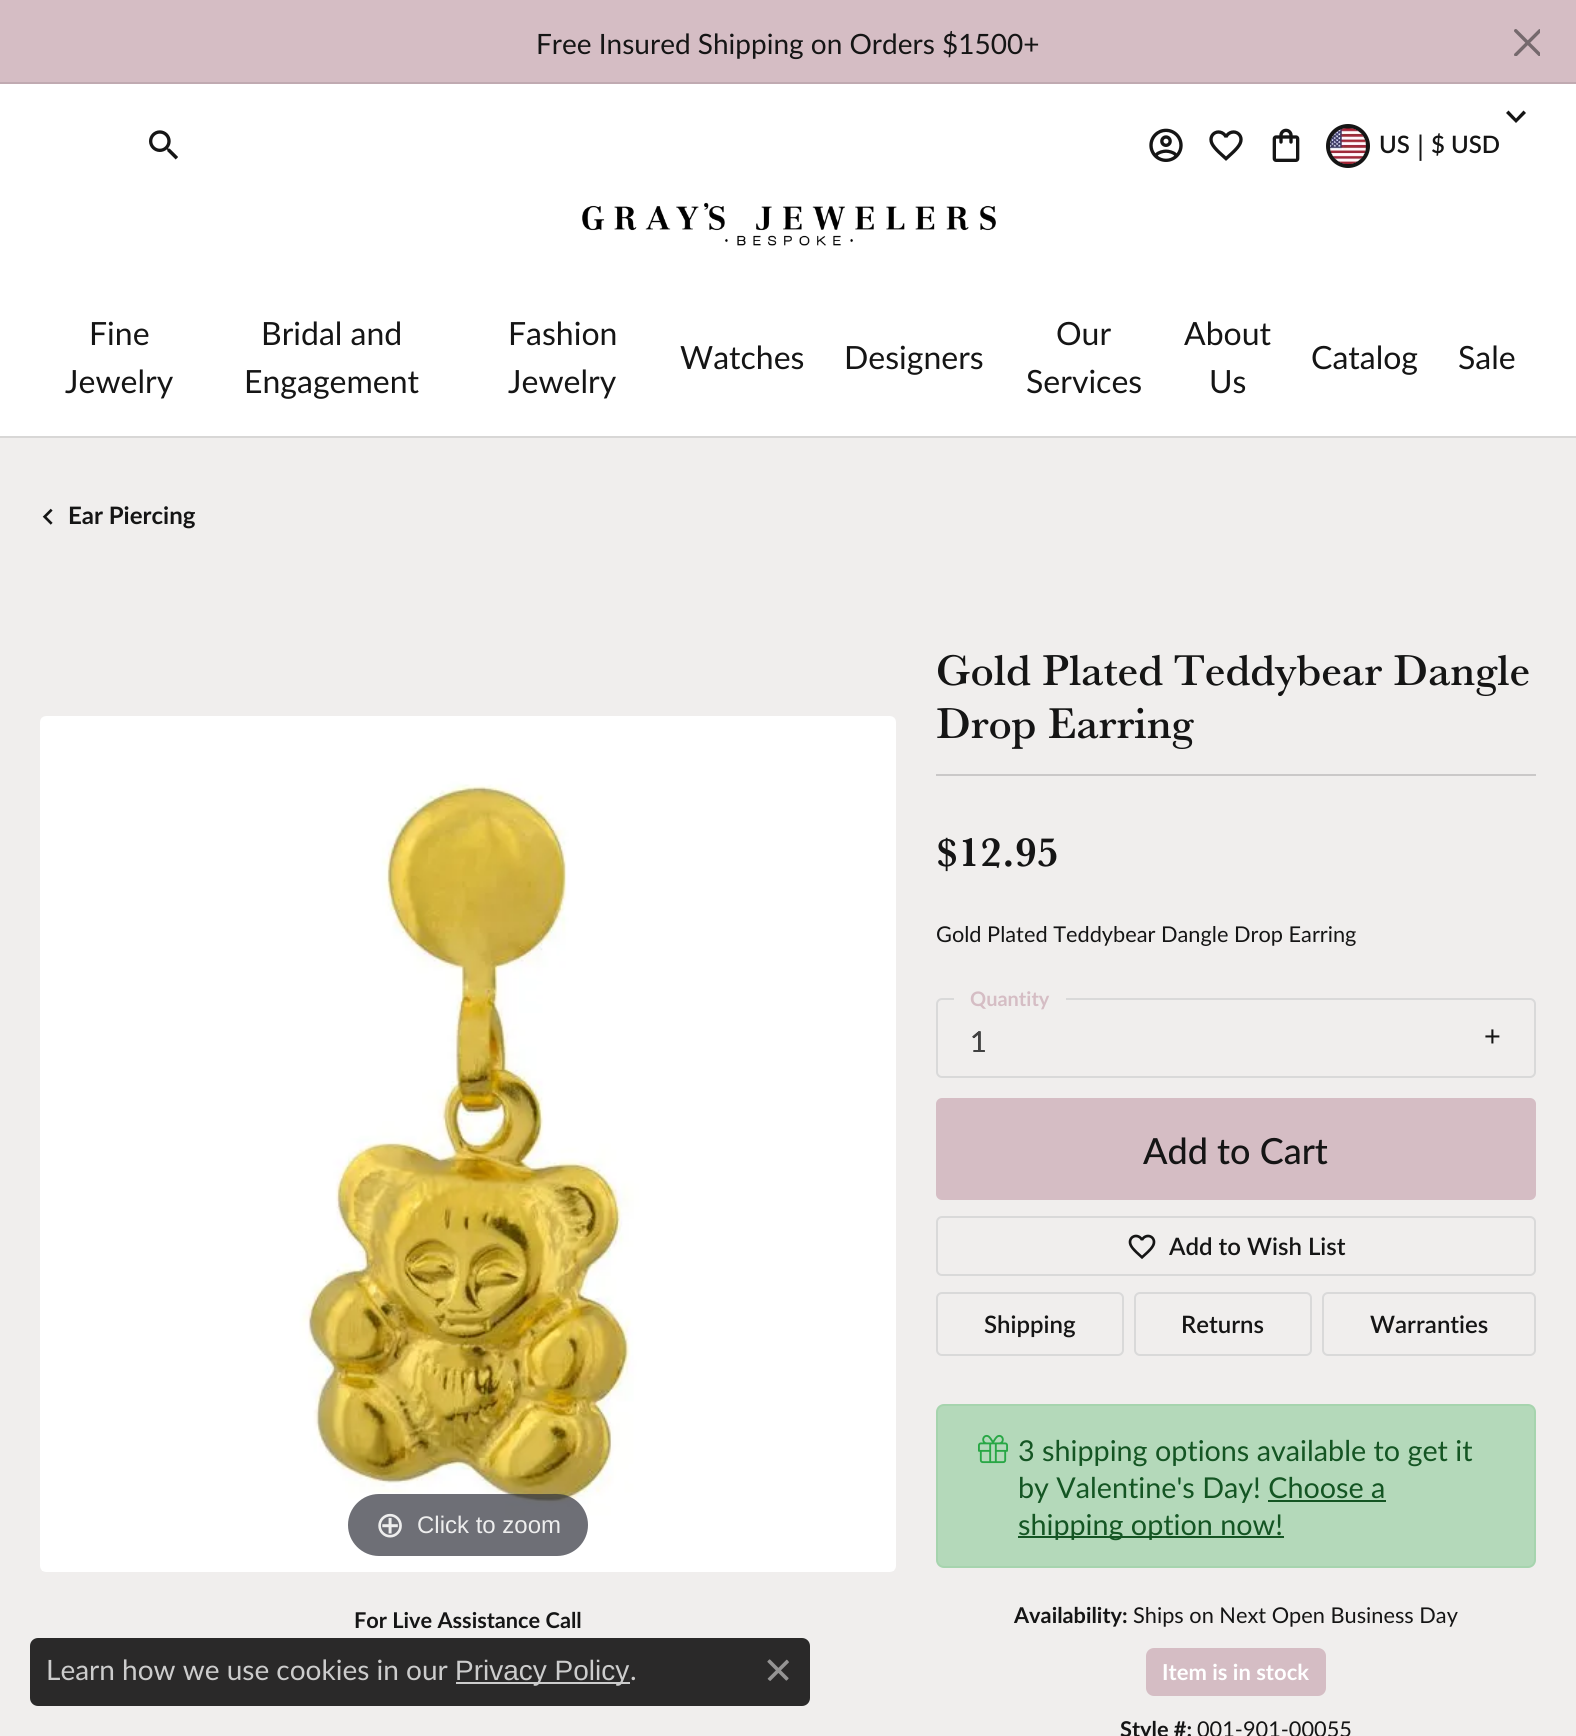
#include <cairo/cairo.h>
#include <math.h>
#include <stddef.h>

typedef struct { double x, y; const char *s; } line_t;
static cairo_t *cr;

static void rgb(unsigned color)
{
	cairo_set_source_rgb(cr, (color >> 16) / 255.0, (color >> 8 & 255) / 255.0, (color & 255) / 255.0);
}

static void rrect(double x, double y, double w, double h, double r)
{
	cairo_new_sub_path(cr);
	cairo_arc(cr, x + w - r, y + h - r, r, 0, M_PI / 2);
	cairo_arc(cr, x + r, y + h - r, r, M_PI / 2, M_PI);
	cairo_arc(cr, x + r, y + r, r, M_PI, 1.5 * M_PI);
	cairo_arc(cr, x + w - r, y + r, r, 1.5 * M_PI, 2 * M_PI);
	cairo_close_path(cr);
}

static void image(const char *path, double x, double y, double w, double h)
{
	cairo_surface_t *image = cairo_image_surface_create_from_png(path);
	cairo_save(cr);
	cairo_set_source_surface(cr, image, x, y);
	cairo_rectangle(cr, x, y, w, h);
	cairo_fill(cr);
	cairo_restore(cr);
	cairo_surface_destroy(image);
}

int main(void) {
	cairo_surface_t *surface = cairo_image_surface_create(CAIRO_FORMAT_RGB24, 1576, 1736);
	cr = cairo_create(surface);
	cairo_font_options_t *options = cairo_font_options_create();
	cairo_font_options_set_hint_metrics(options, CAIRO_HINT_METRICS_OFF);
	cairo_font_options_set_hint_style(options, CAIRO_HINT_STYLE_NONE);
	cairo_set_font_options(cr, options);
	cairo_set_miter_limit(cr, 4);
	rgb(0xffffff);
	cairo_paint(cr);
	rgb(0xd5bdc4);
	cairo_rectangle(cr, 0, 0, 1576, 84);
	cairo_fill(cr);
	image("img/1.png", 1514, 29, 26, 27);
	rgb(0xf0eeed);
	cairo_rectangle(cr, 0, 436, 1576, 1300);
	cairo_fill(cr);
	cairo_rectangle(cr, -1, 83, 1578, 354);
	cairo_set_source_rgba(cr, 0, 0, 0, 0.1);
	cairo_stroke(cr);
	image("img/2.png", 149, 130, 29, 30);
	image("img/3.png", 1149, 128, 34, 34);
	image("img/4.png", 1209, 130, 34, 31);
	image("img/5.png", 1272, 128, 28, 34);
	rgb(0x151515);
	cairo_new_path(cr);
	cairo_move_to(cr, 1516, 123);
	cairo_line_to(cr, 1526, 113);
	cairo_line_to(cr, 1523.5, 110.5);
	cairo_line_to(cr, 1516, 118.5);
	cairo_line_to(cr, 1508.5, 110.5);
	cairo_line_to(cr, 1506, 113);
	cairo_close_path(cr);
	cairo_fill(cr);
	cairo_arc(cr, 1348, 146, 16, 0, 2 * M_PI);
	rgb(0x000000);
	cairo_set_line_width(cr, 4);
	cairo_stroke(cr);
	cairo_arc(cr, 1348, 146, 20, 0, 2 * M_PI);
	rgb(0x151515);
	cairo_stroke(cr);
	image("img/6.png", 1330, 128, 36, 36);
	image("img/7.png", 582, 202, 414, 44);
	image("img/8.png", 42, 508, 11, 17);
	image("img/9.png", 40, 716, 856, 856);
	cairo_set_source_rgba(cr, 0.192, 0.2, 0.239, 0.7);
	rrect(348, 1494, 240, 62, 31);
	cairo_fill(cr);
	rgb(0xcac8c8);
	cairo_rectangle(cr, 936, 774, 600, 2);
	cairo_fill(cr);
	rrect(937, 999, 598, 78, 5);
	rgb(0xd9d9d9);
	cairo_set_line_width(cr, 2);
	cairo_stroke(cr);
	rgb(0xf0eeed);
	cairo_rectangle(cr, 954, 998, 112, 2);
	cairo_fill(cr);
	rgb(0xd5bdc4);
	rrect(937, 1099, 598, 100, 5);
	cairo_fill_preserve(cr);
	cairo_stroke(cr);
	rrect(937, 1217, 598, 58, 5);
	rgb(0xd9d9d9);
	cairo_stroke(cr);
	image("img/10.png", 1128, 1234, 28, 25);
	rrect(937, 1293, 186, 62, 5);
	cairo_stroke(cr);
	rrect(1135, 1293, 176, 62, 5);
	cairo_stroke(cr);
	rrect(1323, 1293, 212, 62, 5);
	cairo_stroke(cr);
	rgb(0xb4d9ba);
	rrect(936, 1404, 600, 164, 8);
	cairo_fill(cr);
	rrect(937, 1405, 598, 162, 7);
	cairo_set_source_rgba(cr, 0.157, 0.655, 0.271, 0.1);
	cairo_stroke(cr);
	image("img/11.png", 978, 1434, 30, 30);
	rgb(0x145523);
	cairo_rectangle(cr, 1268, 1500, 118, 2);
	cairo_fill(cr);
	cairo_rectangle(cr, 1018, 1536, 266, 2);
	cairo_fill(cr);
	rgb(0xd5bdc4);
	rrect(1146, 1648, 180, 48, 8);
	cairo_fill(cr);
	cairo_set_source_rgba(cr, 0.082, 0.082, 0.082, 0.9);
	rrect(30, 1638, 780, 68, 8);
	cairo_fill(cr);
	rgb(0xcccccc);
	cairo_rectangle(cr, 456, 1682, 174, 2);
	cairo_fill(cr);
	image("img/12.png", 767, 1659, 22, 22);
	cairo_select_font_face(cr, "Lato", CAIRO_FONT_SLANT_NORMAL, CAIRO_FONT_WEIGHT_NORMAL);
	cairo_set_font_size(cr, 28);
	rgb(0x151515);
	cairo_move_to(cr, 536, 54);
	cairo_show_text(cr, "Free Insured Shipping on Orders $1500+");
	cairo_select_font_face(cr, "Lato SemiBold", CAIRO_FONT_SLANT_NORMAL, CAIRO_FONT_WEIGHT_NORMAL);
	cairo_set_font_size(cr, 24);
	cairo_move_to(cr, 1379, 153);
	cairo_show_text(cr, "US");
	cairo_select_font_face(cr, "Lato", CAIRO_FONT_SLANT_NORMAL, CAIRO_FONT_WEIGHT_NORMAL);
	cairo_set_font_size(cr, 28);
	cairo_move_to(cr, 1417, 156);
	cairo_show_text(cr, "|");
	cairo_select_font_face(cr, "Lato SemiBold", CAIRO_FONT_SLANT_NORMAL, CAIRO_FONT_WEIGHT_NORMAL);
	cairo_set_font_size(cr, 24);
	cairo_move_to(cr, 1431, 153);
	cairo_show_text(cr, "$ USD");
	cairo_select_font_face(cr, "Lato", CAIRO_FONT_SLANT_NORMAL, CAIRO_FONT_WEIGHT_NORMAL);
	cairo_set_font_size(cr, 32);
	{
		static const line_t items[] = {
			{89, 345, "Fine"},
			{65, 393, "Jewelry"},
			{261, 345, "Bridal and"},
			{244, 393, "Engagement"},
			{508, 345, "Fashion"},
			{508, 393, "Jewelry"},
			{680, 369, "Watches"},
			{844, 369, "Designers"},
			{1056, 345, "Our"},
			{1026, 393, "Services"},
			{1184, 345, "About"},
			{1209, 393, "Us"},
			{1311, 369, "Catalog"},
			{1458, 369, "Sale"},
		};
		for (size_t i = 0; i < sizeof items / sizeof *items; i++) {
			cairo_move_to(cr, items[i].x, items[i].y);
			cairo_show_text(cr, items[i].s);
		}
	}
	cairo_select_font_face(cr, "Lato", CAIRO_FONT_SLANT_NORMAL, CAIRO_FONT_WEIGHT_BOLD);
	cairo_set_font_size(cr, 24);
	cairo_move_to(cr, 68, 524);
	cairo_show_text(cr, "Ear Piercing");
	cairo_select_font_face(cr, "DejaVu Sans", CAIRO_FONT_SLANT_NORMAL, CAIRO_FONT_WEIGHT_NORMAL);
	cairo_set_font_size(cr, 36);
	rgb(0xeeeeee);
	cairo_move_to(cr, 375, 1537);
	cairo_show_text(cr, "⊕");
	cairo_select_font_face(cr, "Liberation Sans", CAIRO_FONT_SLANT_NORMAL, CAIRO_FONT_WEIGHT_NORMAL);
	cairo_set_font_size(cr, 24);
	cairo_move_to(cr, 417, 1533);
	cairo_show_text(cr, "Click to zoom");
	cairo_select_font_face(cr, "Lato", CAIRO_FONT_SLANT_NORMAL, CAIRO_FONT_WEIGHT_BOLD);
	cairo_set_font_size(cr, 21.75);
	rgb(0x151515);
	cairo_move_to(cr, 354, 1628);
	cairo_show_text(cr, "For Live Assistance Call");
	cairo_select_font_face(cr, "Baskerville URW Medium", CAIRO_FONT_SLANT_NORMAL, CAIRO_FONT_WEIGHT_NORMAL);
	cairo_set_font_size(cr, 44.5);
	cairo_move_to(cr, 936, 685);
	cairo_show_text(cr, "Gold Plated Teddybear Dangle");
	cairo_move_to(cr, 936, 738);
	cairo_show_text(cr, "Drop Earring");
	cairo_select_font_face(cr, "Baskerville URW", CAIRO_FONT_SLANT_NORMAL, CAIRO_FONT_WEIGHT_BOLD);
	cairo_set_font_size(cr, 41.5);
	cairo_move_to(cr, 936, 866);
	cairo_show_text(cr, "$12.95");
	cairo_select_font_face(cr, "Lato", CAIRO_FONT_SLANT_NORMAL, CAIRO_FONT_WEIGHT_NORMAL);
	cairo_set_font_size(cr, 21.75);
	cairo_move_to(cr, 936, 942);
	cairo_show_text(cr, "Gold Plated Teddybear Dangle Drop Earring");
	cairo_select_font_face(cr, "Lato", CAIRO_FONT_SLANT_NORMAL, CAIRO_FONT_WEIGHT_BOLD);
	cairo_set_font_size(cr, 20);
	rgb(0xd5bdc4);
	cairo_move_to(cr, 970, 1006);
	cairo_show_text(cr, "Quantity");
	cairo_select_font_face(cr, "Lato", CAIRO_FONT_SLANT_NORMAL, CAIRO_FONT_WEIGHT_NORMAL);
	cairo_set_font_size(cr, 28.75);
	rgb(0x151515);
	cairo_move_to(cr, 970, 1052);
	cairo_show_text(cr, "1");
	cairo_select_font_face(cr, "Liberation Sans", CAIRO_FONT_SLANT_NORMAL, CAIRO_FONT_WEIGHT_NORMAL);
	cairo_move_to(cr, 1484, 1046);
	cairo_show_text(cr, "+");
	cairo_select_font_face(cr, "Lato", CAIRO_FONT_SLANT_NORMAL, CAIRO_FONT_WEIGHT_NORMAL);
	rgb(0x424242);
	cairo_move_to(cr, 970, 1052);
	cairo_show_text(cr, "1");
	cairo_select_font_face(cr, "Lato Medium", CAIRO_FONT_SLANT_NORMAL, CAIRO_FONT_WEIGHT_NORMAL);
	cairo_set_font_size(cr, 36);
	rgb(0x151515);
	cairo_move_to(cr, 1143, 1164);
	cairo_show_text(cr, "Add to Cart");
	cairo_select_font_face(cr, "Lato SemiBold", CAIRO_FONT_SLANT_NORMAL, CAIRO_FONT_WEIGHT_NORMAL);
	cairo_set_font_size(cr, 24);
	{
		static const line_t items[] = {
			{1169, 1255, "Add to Wish List"},
			{984, 1333, "Shipping"},
			{1181, 1333, "Returns"},
			{1370, 1333, "Warranties"},
		};
		for (size_t i = 0; i < sizeof items / sizeof *items; i++) {
			cairo_move_to(cr, items[i].x, items[i].y);
			cairo_show_text(cr, items[i].s);
		}
	}
	cairo_select_font_face(cr, "Lato", CAIRO_FONT_SLANT_NORMAL, CAIRO_FONT_WEIGHT_NORMAL);
	cairo_set_font_size(cr, 28.75);
	rgb(0x145523);
	{
		static const line_t items[] = {
			{1018, 1461, "3 shipping options available to get it"},
			{1018, 1498, "by Valentine's Day! Choose a"},
			{1018, 1535, "shipping option now!"},
		};
		for (size_t i = 0; i < sizeof items / sizeof *items; i++) {
			cairo_move_to(cr, items[i].x, items[i].y);
			cairo_show_text(cr, items[i].s);
		}
	}
	cairo_select_font_face(cr, "Lato", CAIRO_FONT_SLANT_NORMAL, CAIRO_FONT_WEIGHT_BOLD);
	cairo_set_font_size(cr, 21.75);
	rgb(0x151515);
	cairo_move_to(cr, 1014, 1623);
	cairo_show_text(cr, "Availability:");
	cairo_select_font_face(cr, "Lato", CAIRO_FONT_SLANT_NORMAL, CAIRO_FONT_WEIGHT_NORMAL);
	cairo_move_to(cr, 1133, 1623);
	cairo_show_text(cr, "Ships on Next Open Business Day");
	cairo_select_font_face(cr, "Lato", CAIRO_FONT_SLANT_NORMAL, CAIRO_FONT_WEIGHT_BOLD);
	cairo_set_font_size(cr, 22);
	rgb(0xffffff);
	cairo_move_to(cr, 1162, 1680);
	cairo_show_text(cr, "Item is in stock");
	cairo_set_font_size(cr, 21.75);
	rgb(0x151515);
	cairo_move_to(cr, 1120, 1737);
	cairo_show_text(cr, "Style #:");
	cairo_select_font_face(cr, "Lato", CAIRO_FONT_SLANT_NORMAL, CAIRO_FONT_WEIGHT_NORMAL);
	cairo_move_to(cr, 1197, 1737);
	cairo_show_text(cr, "001-901-00055");
	cairo_set_font_size(cr, 28);
	rgb(0xcccccc);
	cairo_move_to(cr, 46, 1680);
	cairo_show_text(cr, "Learn how we use cookies in our");
	cairo_select_font_face(cr, "Liberation Sans", CAIRO_FONT_SLANT_NORMAL, CAIRO_FONT_WEIGHT_NORMAL);
	cairo_move_to(cr, 455, 1680);
	cairo_show_text(cr, "Privacy Policy");
	cairo_select_font_face(cr, "Lato", CAIRO_FONT_SLANT_NORMAL, CAIRO_FONT_WEIGHT_NORMAL);
	cairo_move_to(cr, 630, 1680);
	cairo_show_text(cr, ".");
	cairo_surface_write_to_png(surface, "page.png");
	cairo_font_options_destroy(options);
	cairo_destroy(cr);
	cairo_surface_destroy(surface);
	return 0;
}
